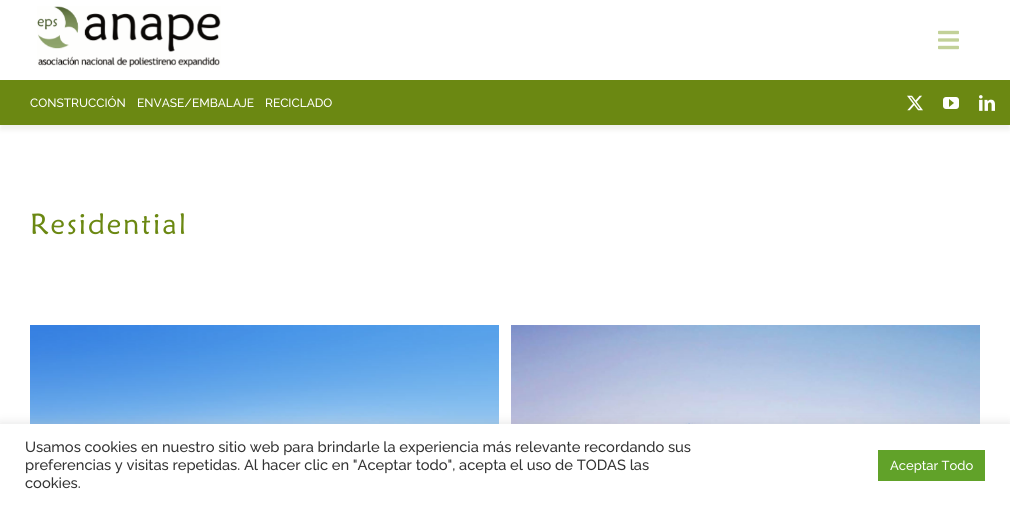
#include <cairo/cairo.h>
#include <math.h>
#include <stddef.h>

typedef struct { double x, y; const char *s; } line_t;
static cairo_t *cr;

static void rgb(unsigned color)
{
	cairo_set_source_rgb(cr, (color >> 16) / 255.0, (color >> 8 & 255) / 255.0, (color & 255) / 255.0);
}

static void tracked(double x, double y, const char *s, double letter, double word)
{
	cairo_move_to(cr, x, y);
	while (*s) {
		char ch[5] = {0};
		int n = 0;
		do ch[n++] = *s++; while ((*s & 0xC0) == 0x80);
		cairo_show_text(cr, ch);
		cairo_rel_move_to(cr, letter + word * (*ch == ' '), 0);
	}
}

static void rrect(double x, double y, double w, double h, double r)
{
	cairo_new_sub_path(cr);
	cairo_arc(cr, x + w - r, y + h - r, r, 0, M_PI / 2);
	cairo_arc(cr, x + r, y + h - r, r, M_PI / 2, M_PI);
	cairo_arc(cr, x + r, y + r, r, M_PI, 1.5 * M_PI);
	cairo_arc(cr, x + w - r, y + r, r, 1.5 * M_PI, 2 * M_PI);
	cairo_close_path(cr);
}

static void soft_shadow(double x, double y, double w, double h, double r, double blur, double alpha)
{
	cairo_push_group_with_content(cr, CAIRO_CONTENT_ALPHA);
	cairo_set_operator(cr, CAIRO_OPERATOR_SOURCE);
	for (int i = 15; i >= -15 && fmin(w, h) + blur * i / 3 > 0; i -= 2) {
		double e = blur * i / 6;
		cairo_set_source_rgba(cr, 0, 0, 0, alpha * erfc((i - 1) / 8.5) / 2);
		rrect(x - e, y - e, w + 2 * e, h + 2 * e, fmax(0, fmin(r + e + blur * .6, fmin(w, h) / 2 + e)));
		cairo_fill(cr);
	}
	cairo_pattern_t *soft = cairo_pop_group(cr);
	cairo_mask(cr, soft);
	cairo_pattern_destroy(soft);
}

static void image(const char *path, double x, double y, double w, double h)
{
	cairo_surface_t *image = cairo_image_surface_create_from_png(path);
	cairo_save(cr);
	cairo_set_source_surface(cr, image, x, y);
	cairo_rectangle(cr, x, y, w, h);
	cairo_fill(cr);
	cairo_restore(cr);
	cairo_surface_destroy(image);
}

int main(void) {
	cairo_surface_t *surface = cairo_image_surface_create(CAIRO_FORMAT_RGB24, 1010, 506);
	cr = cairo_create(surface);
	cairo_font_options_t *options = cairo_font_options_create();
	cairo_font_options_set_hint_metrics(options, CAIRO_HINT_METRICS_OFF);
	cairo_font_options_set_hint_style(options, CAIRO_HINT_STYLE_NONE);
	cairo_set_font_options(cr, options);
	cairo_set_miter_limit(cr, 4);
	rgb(0xffffff);
	cairo_paint(cr);
	image("img/1.png", 37, 6, 184, 62);
	image("img/2.png", 938, 30, 21, 20);
	rgb(0x232d06);
	soft_shadow(0, 85, 1010, 45, 0, 2.5, 0.07);
	rgb(0x6b8812);
	cairo_rectangle(cr, 0, 80, 1010, 45);
	cairo_fill(cr);
	image("img/3.png", 907, 95, 16, 16);
	image("img/4.png", 943, 97, 16, 12);
	image("img/5.png", 979, 95, 16, 16);
	image("img/6.png", 30, 325, 469, 99);
	image("img/7.png", 511, 325, 469, 99);
	rgb(0xacabab);
	soft_shadow(0, 423, 1010, 82, 0, 5, 0.3);
	rgb(0xffffff);
	cairo_rectangle(cr, 0, 424, 1010, 82);
	cairo_fill(cr);
	rgb(0x61a229);
	cairo_rectangle(cr, 878, 450, 107, 31);
	cairo_fill(cr);
	cairo_select_font_face(cr, "Raleway Medium", CAIRO_FONT_SLANT_NORMAL, CAIRO_FONT_WEIGHT_NORMAL);
	cairo_set_font_size(cr, 12);
	rgb(0xffffff);
	{
		static const line_t items[] = {
			{30, 107, "CONSTRUCCIÓN"},
			{137, 107, "ENVASE/EMBALAJE"},
			{265, 107, "RECICLADO"},
		};
		for (size_t i = 0; i < sizeof items / sizeof *items; i++) {
			cairo_move_to(cr, items[i].x, items[i].y);
			cairo_show_text(cr, items[i].s);
		}
	}
	cairo_select_font_face(cr, "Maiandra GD", CAIRO_FONT_SLANT_NORMAL, CAIRO_FONT_WEIGHT_NORMAL);
	cairo_set_font_size(cr, 29);
	rgb(0x6b8812);
	tracked(30, 234, "Residential", 2, 0);
	cairo_select_font_face(cr, "Raleway Medium", CAIRO_FONT_SLANT_NORMAL, CAIRO_FONT_WEIGHT_NORMAL);
	cairo_set_font_size(cr, 14.65);
	rgb(0x333333);
	{
		static const line_t items[] = {
			{25, 452, "Usamos cookies en nuestro sitio web para brindarle la experiencia más relevante recordando sus"},
			{25, 470, "preferencias y visitas repetidas. Al hacer clic en \"Aceptar todo\", acepta el uso de TODAS las"},
			{25, 488, "cookies."},
		};
		for (size_t i = 0; i < sizeof items / sizeof *items; i++) {
			cairo_move_to(cr, items[i].x, items[i].y);
			cairo_show_text(cr, items[i].s);
		}
	}
	cairo_set_font_size(cr, 13);
	rgb(0xffffff);
	cairo_move_to(cr, 890, 470);
	cairo_show_text(cr, "Aceptar Todo");
	cairo_surface_write_to_png(surface, "page.png");
	cairo_font_options_destroy(options);
	cairo_destroy(cr);
	cairo_surface_destroy(surface);
	return 0;
}
